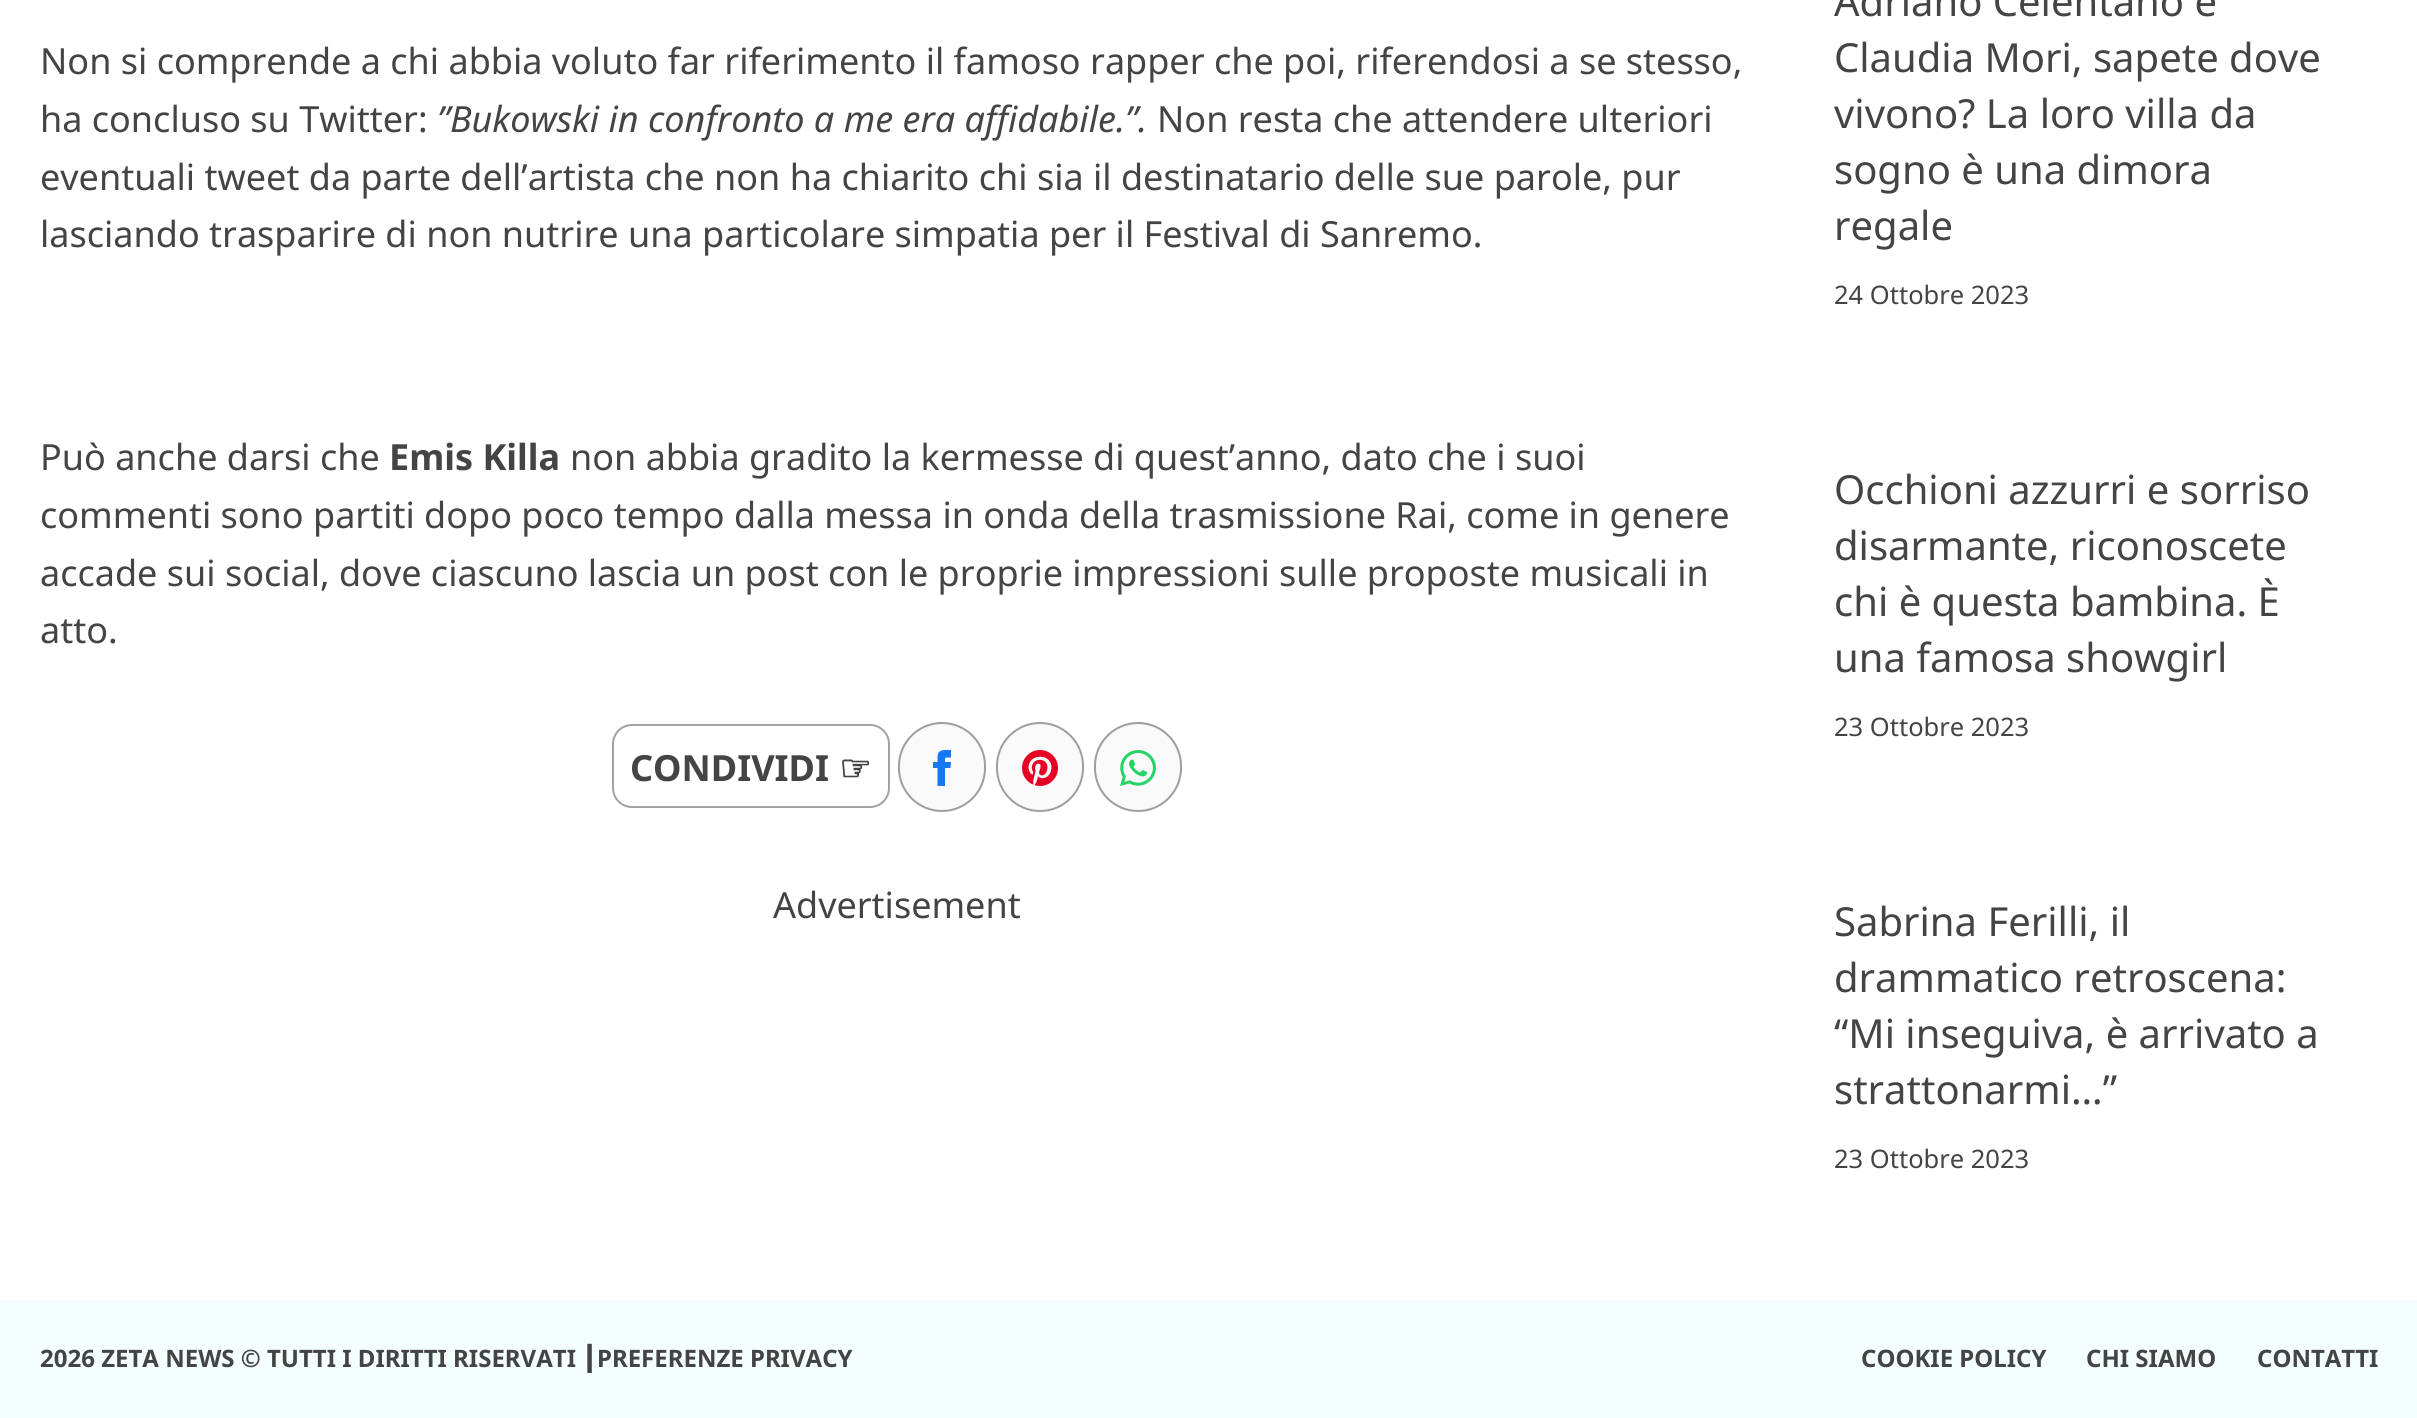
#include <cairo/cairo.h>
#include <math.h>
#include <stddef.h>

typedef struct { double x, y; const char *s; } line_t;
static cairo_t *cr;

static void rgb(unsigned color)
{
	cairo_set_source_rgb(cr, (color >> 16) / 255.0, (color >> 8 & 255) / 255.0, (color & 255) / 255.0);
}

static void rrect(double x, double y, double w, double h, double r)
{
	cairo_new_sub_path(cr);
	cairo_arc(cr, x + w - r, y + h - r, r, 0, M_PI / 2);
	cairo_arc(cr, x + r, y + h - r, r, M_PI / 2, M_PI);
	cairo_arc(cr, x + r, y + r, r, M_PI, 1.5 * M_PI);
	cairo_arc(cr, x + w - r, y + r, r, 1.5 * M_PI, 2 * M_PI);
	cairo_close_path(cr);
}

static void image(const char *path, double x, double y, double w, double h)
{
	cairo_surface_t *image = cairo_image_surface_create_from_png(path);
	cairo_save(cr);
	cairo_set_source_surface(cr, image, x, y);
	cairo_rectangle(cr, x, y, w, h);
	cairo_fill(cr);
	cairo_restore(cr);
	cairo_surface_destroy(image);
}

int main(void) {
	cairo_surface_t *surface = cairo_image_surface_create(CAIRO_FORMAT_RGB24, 2417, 1418);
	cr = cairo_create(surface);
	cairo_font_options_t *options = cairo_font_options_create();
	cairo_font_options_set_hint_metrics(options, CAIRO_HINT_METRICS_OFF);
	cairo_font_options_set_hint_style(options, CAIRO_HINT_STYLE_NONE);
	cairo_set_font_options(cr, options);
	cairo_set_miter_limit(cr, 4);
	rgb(0xffffff);
	cairo_paint(cr);
	rrect(613, 725, 276, 82, 19);
	rgb(0xa1a1a1);
	cairo_stroke(cr);
	rgb(0xfafafa);
	rrect(898, 722, 88, 90, 44);
	cairo_fill(cr);
	rrect(899, 723, 86, 88, 43);
	cairo_set_source_rgba(cr, 0, 0, 0, 0.37);
	cairo_stroke(cr);
	image("img/1.png", 933, 750, 18, 36);
	rgb(0xfafafa);
	rrect(996, 722, 88, 90, 44);
	cairo_fill(cr);
	rrect(997, 723, 86, 88, 43);
	cairo_set_source_rgba(cr, 0, 0, 0, 0.37);
	cairo_stroke(cr);
	image("img/2.png", 1022, 750, 36, 36);
	rgb(0xfafafa);
	rrect(1094, 722, 88, 90, 44);
	cairo_fill(cr);
	rrect(1095, 723, 86, 88, 43);
	cairo_set_source_rgba(cr, 0, 0, 0, 0.37);
	cairo_stroke(cr);
	image("img/3.png", 1120, 750, 36, 36);
	rgb(0xf4fefe);
	cairo_rectangle(cr, 0, 1300, 2417, 118);
	cairo_fill(cr);
	cairo_select_font_face(cr, "Noto Sans", CAIRO_FONT_SLANT_NORMAL, CAIRO_FONT_WEIGHT_NORMAL);
	cairo_set_font_size(cr, 36);
	rgb(0x444444);
	cairo_move_to(cr, 40, 74);
	cairo_show_text(cr, "Non si comprende a chi abbia voluto far riferimento il famoso rapper che poi, riferendosi a se stesso,");
	cairo_move_to(cr, 40, 132);
	cairo_show_text(cr, "ha concluso su Twitter:");
	cairo_select_font_face(cr, "Noto Sans", CAIRO_FONT_SLANT_ITALIC, CAIRO_FONT_WEIGHT_NORMAL);
	cairo_move_to(cr, 437, 132);
	cairo_show_text(cr, "”Bukowski in confronto a me era affidabile.”.");
	cairo_select_font_face(cr, "Noto Sans", CAIRO_FONT_SLANT_NORMAL, CAIRO_FONT_WEIGHT_NORMAL);
	{
		static const line_t items[] = {
			{1157, 132, "Non resta che attendere ulteriori"},
			{40, 190, "eventuali tweet da parte dell’artista che non ha chiarito chi sia il destinatario delle sue parole, pur"},
			{40, 247, "lasciando trasparire di non nutrire una particolare simpatia per il Festival di Sanremo."},
			{40, 470, "Può anche darsi che"},
		};
		for (size_t i = 0; i < sizeof items / sizeof *items; i++) {
			cairo_move_to(cr, items[i].x, items[i].y);
			cairo_show_text(cr, items[i].s);
		}
	}
	cairo_select_font_face(cr, "Noto Sans", CAIRO_FONT_SLANT_NORMAL, CAIRO_FONT_WEIGHT_BOLD);
	cairo_move_to(cr, 389, 470);
	cairo_show_text(cr, "Emis Killa");
	cairo_select_font_face(cr, "Noto Sans", CAIRO_FONT_SLANT_NORMAL, CAIRO_FONT_WEIGHT_NORMAL);
	{
		static const line_t items[] = {
			{570, 470, "non abbia gradito la kermesse di quest’anno, dato che i suoi"},
			{40, 528, "commenti sono partiti dopo poco tempo dalla messa in onda della trasmissione Rai, come in genere"},
			{40, 586, "accade sui social, dove ciascuno lascia un post con le proprie impressioni sulle proposte musicali in"},
			{40, 643, "atto."},
		};
		for (size_t i = 0; i < sizeof items / sizeof *items; i++) {
			cairo_move_to(cr, items[i].x, items[i].y);
			cairo_show_text(cr, items[i].s);
		}
	}
	cairo_select_font_face(cr, "Noto Sans", CAIRO_FONT_SLANT_NORMAL, CAIRO_FONT_WEIGHT_BOLD);
	cairo_move_to(cr, 630, 781);
	cairo_show_text(cr, "CONDIVIDI");
	cairo_select_font_face(cr, "DejaVu Sans", CAIRO_FONT_SLANT_NORMAL, CAIRO_FONT_WEIGHT_BOLD);
	cairo_move_to(cr, 839, 781);
	cairo_show_text(cr, "☞");
	cairo_select_font_face(cr, "Noto Sans", CAIRO_FONT_SLANT_NORMAL, CAIRO_FONT_WEIGHT_NORMAL);
	cairo_move_to(cr, 773, 918);
	cairo_show_text(cr, "Advertisement");
	cairo_set_font_size(cr, 40);
	{
		static const line_t items[] = {
			{1834, 16, "Adriano Celentano e"},
			{1834, 72, "Claudia Mori, sapete dove"},
			{1834, 128, "vivono? La loro villa da"},
			{1834, 184, "sogno è una dimora"},
			{1834, 240, "regale"},
		};
		for (size_t i = 0; i < sizeof items / sizeof *items; i++) {
			cairo_move_to(cr, items[i].x, items[i].y);
			cairo_show_text(cr, items[i].s);
		}
	}
	cairo_set_font_size(cr, 25.5);
	cairo_move_to(cr, 1834, 304);
	cairo_show_text(cr, "24 Ottobre 2023");
	cairo_set_font_size(cr, 40);
	{
		static const line_t items[] = {
			{1834, 504, "Occhioni azzurri e sorriso"},
			{1834, 560, "disarmante, riconoscete"},
			{1834, 616, "chi è questa bambina. È"},
			{1834, 672, "una famosa showgirl"},
		};
		for (size_t i = 0; i < sizeof items / sizeof *items; i++) {
			cairo_move_to(cr, items[i].x, items[i].y);
			cairo_show_text(cr, items[i].s);
		}
	}
	cairo_set_font_size(cr, 25.5);
	cairo_move_to(cr, 1834, 736);
	cairo_show_text(cr, "23 Ottobre 2023");
	cairo_set_font_size(cr, 40);
	{
		static const line_t items[] = {
			{1834, 936, "Sabrina Ferilli, il"},
			{1834, 992, "drammatico retroscena:"},
			{1834, 1048, "“Mi inseguiva, è arrivato a"},
			{1834, 1104, "strattonarmi…”"},
		};
		for (size_t i = 0; i < sizeof items / sizeof *items; i++) {
			cairo_move_to(cr, items[i].x, items[i].y);
			cairo_show_text(cr, items[i].s);
		}
	}
	cairo_set_font_size(cr, 25.5);
	cairo_move_to(cr, 1834, 1168);
	cairo_show_text(cr, "23 Ottobre 2023");
	cairo_select_font_face(cr, "Noto Sans", CAIRO_FONT_SLANT_NORMAL, CAIRO_FONT_WEIGHT_BOLD);
	cairo_set_font_size(cr, 24);
	cairo_move_to(cr, 40, 1367);
	cairo_show_text(cr, "2026 ZETA NEWS © TUTTI I DIRITTI RISERVATI");
	cairo_select_font_face(cr, "DejaVu Sans", CAIRO_FONT_SLANT_NORMAL, CAIRO_FONT_WEIGHT_BOLD);
	cairo_move_to(cr, 582, 1367);
	cairo_show_text(cr, "┃");
	cairo_select_font_face(cr, "Noto Sans", CAIRO_FONT_SLANT_NORMAL, CAIRO_FONT_WEIGHT_BOLD);
	{
		static const line_t items[] = {
			{597, 1367, "PREFERENZE PRIVACY"},
			{1861, 1367, "COOKIE POLICY"},
			{2086, 1367, "CHI SIAMO"},
			{2257, 1367, "CONTATTI"},
		};
		for (size_t i = 0; i < sizeof items / sizeof *items; i++) {
			cairo_move_to(cr, items[i].x, items[i].y);
			cairo_show_text(cr, items[i].s);
		}
	}
	cairo_surface_write_to_png(surface, "page.png");
	cairo_font_options_destroy(options);
	cairo_destroy(cr);
	cairo_surface_destroy(surface);
	return 0;
}
